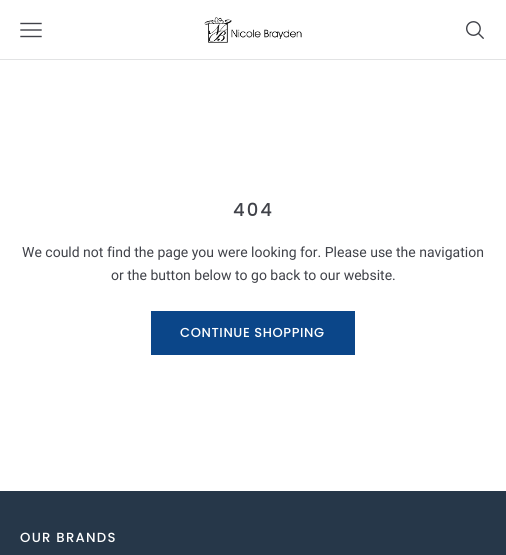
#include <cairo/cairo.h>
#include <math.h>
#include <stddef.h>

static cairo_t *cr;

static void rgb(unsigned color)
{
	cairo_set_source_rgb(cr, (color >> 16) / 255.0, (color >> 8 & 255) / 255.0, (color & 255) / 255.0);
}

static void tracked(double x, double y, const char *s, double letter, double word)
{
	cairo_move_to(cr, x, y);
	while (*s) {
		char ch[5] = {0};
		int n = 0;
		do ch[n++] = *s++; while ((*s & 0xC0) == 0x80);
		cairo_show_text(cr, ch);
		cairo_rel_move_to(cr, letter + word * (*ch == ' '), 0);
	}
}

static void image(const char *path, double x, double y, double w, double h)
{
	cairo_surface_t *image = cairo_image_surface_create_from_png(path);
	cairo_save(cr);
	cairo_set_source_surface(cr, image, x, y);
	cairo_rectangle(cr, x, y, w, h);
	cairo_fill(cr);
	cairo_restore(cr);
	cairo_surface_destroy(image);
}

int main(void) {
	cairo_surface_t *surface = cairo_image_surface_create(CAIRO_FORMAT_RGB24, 506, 555);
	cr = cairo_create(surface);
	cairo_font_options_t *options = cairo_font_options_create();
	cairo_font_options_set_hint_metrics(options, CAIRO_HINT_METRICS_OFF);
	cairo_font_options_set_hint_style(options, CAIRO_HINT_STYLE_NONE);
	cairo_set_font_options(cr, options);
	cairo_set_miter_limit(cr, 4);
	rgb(0xffffff);
	cairo_paint(cr);
	rgb(0xe2e3e4);
	cairo_rectangle(cr, 0, 59, 506, 1);
	cairo_fill(cr);
	cairo_new_path(cr);
	cairo_move_to(cr, 21, 36.5);
	cairo_line_to(cr, 41, 36.5);
	cairo_move_to(cr, 21, 30);
	cairo_line_to(cr, 41, 30);
	cairo_move_to(cr, 21, 23.5);
	cairo_line_to(cr, 41, 23.5);
	rgb(0x404249);
	cairo_set_line_width(cr, 1.4);
	cairo_set_line_cap(cr, CAIRO_LINE_CAP_SQUARE);
	cairo_stroke(cr);
	image("img/1.png", 204, 17, 98, 26);
	image("img/2.png", 466, 21, 18, 18);
	rgb(0x0b4689);
	cairo_rectangle(cr, 151.5, 311.5, 203, 43);
	cairo_fill_preserve(cr);
	cairo_set_line_width(cr, 1);
	cairo_set_line_cap(cr, CAIRO_LINE_CAP_BUTT);
	cairo_stroke(cr);
	rgb(0x263749);
	cairo_rectangle(cr, 0, 491, 506, 64);
	cairo_fill(cr);
	cairo_select_font_face(cr, "Poppins Medium", CAIRO_FONT_SLANT_NORMAL, CAIRO_FONT_WEIGHT_NORMAL);
	cairo_set_font_size(cr, 18);
	rgb(0x404249);
	tracked(233, 216, "404", 2, 0);
	cairo_select_font_face(cr, "Roboto", CAIRO_FONT_SLANT_NORMAL, CAIRO_FONT_WEIGHT_NORMAL);
	cairo_set_font_size(cr, 14);
	cairo_move_to(cr, 22, 257);
	cairo_show_text(cr, "We could not find the page you were looking for. Please use the navigation");
	cairo_move_to(cr, 111, 280);
	cairo_show_text(cr, "or the button below to go back to our website.");
	cairo_select_font_face(cr, "Poppins Medium", CAIRO_FONT_SLANT_NORMAL, CAIRO_FONT_WEIGHT_NORMAL);
	cairo_set_font_size(cr, 13);
	rgb(0xffffff);
	tracked(180, 337, "CONTINUE SHOPPING", 0.6, 0);
	cairo_set_font_size(cr, 13.25);
	tracked(20, 542, "OUR BRANDS", 1.25, 0);
	cairo_surface_write_to_png(surface, "page.png");
	cairo_font_options_destroy(options);
	cairo_destroy(cr);
	cairo_surface_destroy(surface);
	return 0;
}
